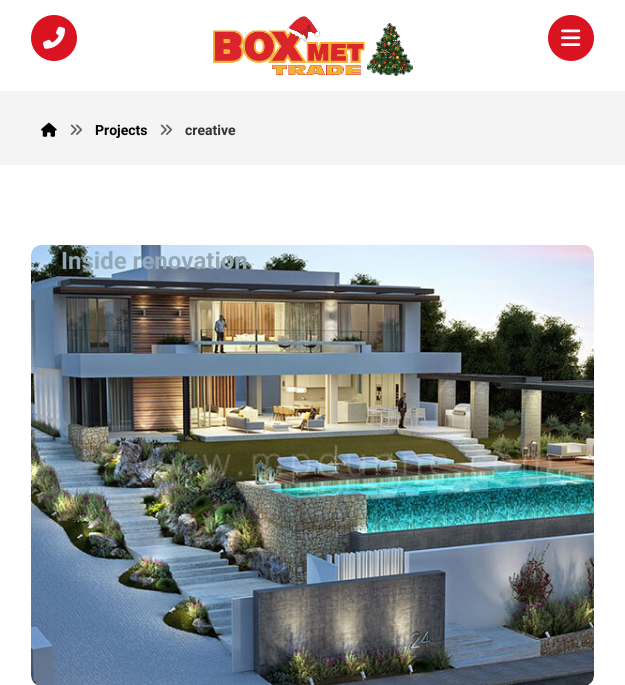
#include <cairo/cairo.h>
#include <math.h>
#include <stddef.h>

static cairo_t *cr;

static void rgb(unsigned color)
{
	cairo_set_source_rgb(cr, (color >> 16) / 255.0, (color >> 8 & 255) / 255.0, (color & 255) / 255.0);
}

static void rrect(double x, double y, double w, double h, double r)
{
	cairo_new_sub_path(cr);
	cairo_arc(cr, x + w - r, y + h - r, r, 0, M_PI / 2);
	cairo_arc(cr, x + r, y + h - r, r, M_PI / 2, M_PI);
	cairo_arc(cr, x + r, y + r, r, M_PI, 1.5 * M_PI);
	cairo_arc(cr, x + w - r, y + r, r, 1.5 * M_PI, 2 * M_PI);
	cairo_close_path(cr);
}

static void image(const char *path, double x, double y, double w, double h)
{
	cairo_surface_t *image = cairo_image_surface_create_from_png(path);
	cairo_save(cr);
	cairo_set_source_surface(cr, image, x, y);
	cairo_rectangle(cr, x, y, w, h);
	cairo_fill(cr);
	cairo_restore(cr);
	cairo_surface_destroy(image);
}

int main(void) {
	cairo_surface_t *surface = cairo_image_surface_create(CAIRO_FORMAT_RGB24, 625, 685);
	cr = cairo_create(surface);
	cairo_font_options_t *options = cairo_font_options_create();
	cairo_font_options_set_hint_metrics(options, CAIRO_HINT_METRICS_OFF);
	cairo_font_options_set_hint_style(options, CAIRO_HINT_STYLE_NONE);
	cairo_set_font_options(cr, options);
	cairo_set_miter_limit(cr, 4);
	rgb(0xffffff);
	cairo_paint(cr);
	rgb(0xda1320);
	cairo_arc(cr, 54, 38, 23, 0, 2 * M_PI);
	cairo_fill(cr);
	image("img/1.png", 43, 26, 22, 23);
	image("img/2.png", 213, 16, 200, 60);
	cairo_arc(cr, 571, 38, 23, 0, 2 * M_PI);
	cairo_fill(cr);
	image("img/3.png", 561, 29, 20, 17);
	rgb(0xf4f4f4);
	cairo_rectangle(cr, 0, 91, 625, 74);
	cairo_fill(cr);
	image("img/4.png", 41, 122, 16, 15);
	image("img/5.png", 70, 124, 13, 11);
	image("img/5.png", 160, 124, 13, 11);
	rgb(0xeeeeee);
	rrect(31, 245, 563, 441, 10);
	cairo_fill(cr);
	image("img/6.png", 31, 245, 563, 440);
	cairo_select_font_face(cr, "Roboto", CAIRO_FONT_SLANT_NORMAL, CAIRO_FONT_WEIGHT_BOLD);
	cairo_set_font_size(cr, 14);
	rgb(0x000000);
	cairo_move_to(cr, 95, 135);
	cairo_show_text(cr, "Projects");
	rgb(0x313131);
	cairo_move_to(cr, 185, 135);
	cairo_show_text(cr, "creative");
	cairo_set_font_size(cr, 24);
	rgb(0x93a8b7);
	cairo_move_to(cr, 61, 269);
	cairo_show_text(cr, "Inside renovation");
	cairo_surface_write_to_png(surface, "page.png");
	cairo_font_options_destroy(options);
	cairo_destroy(cr);
	cairo_surface_destroy(surface);
	return 0;
}
